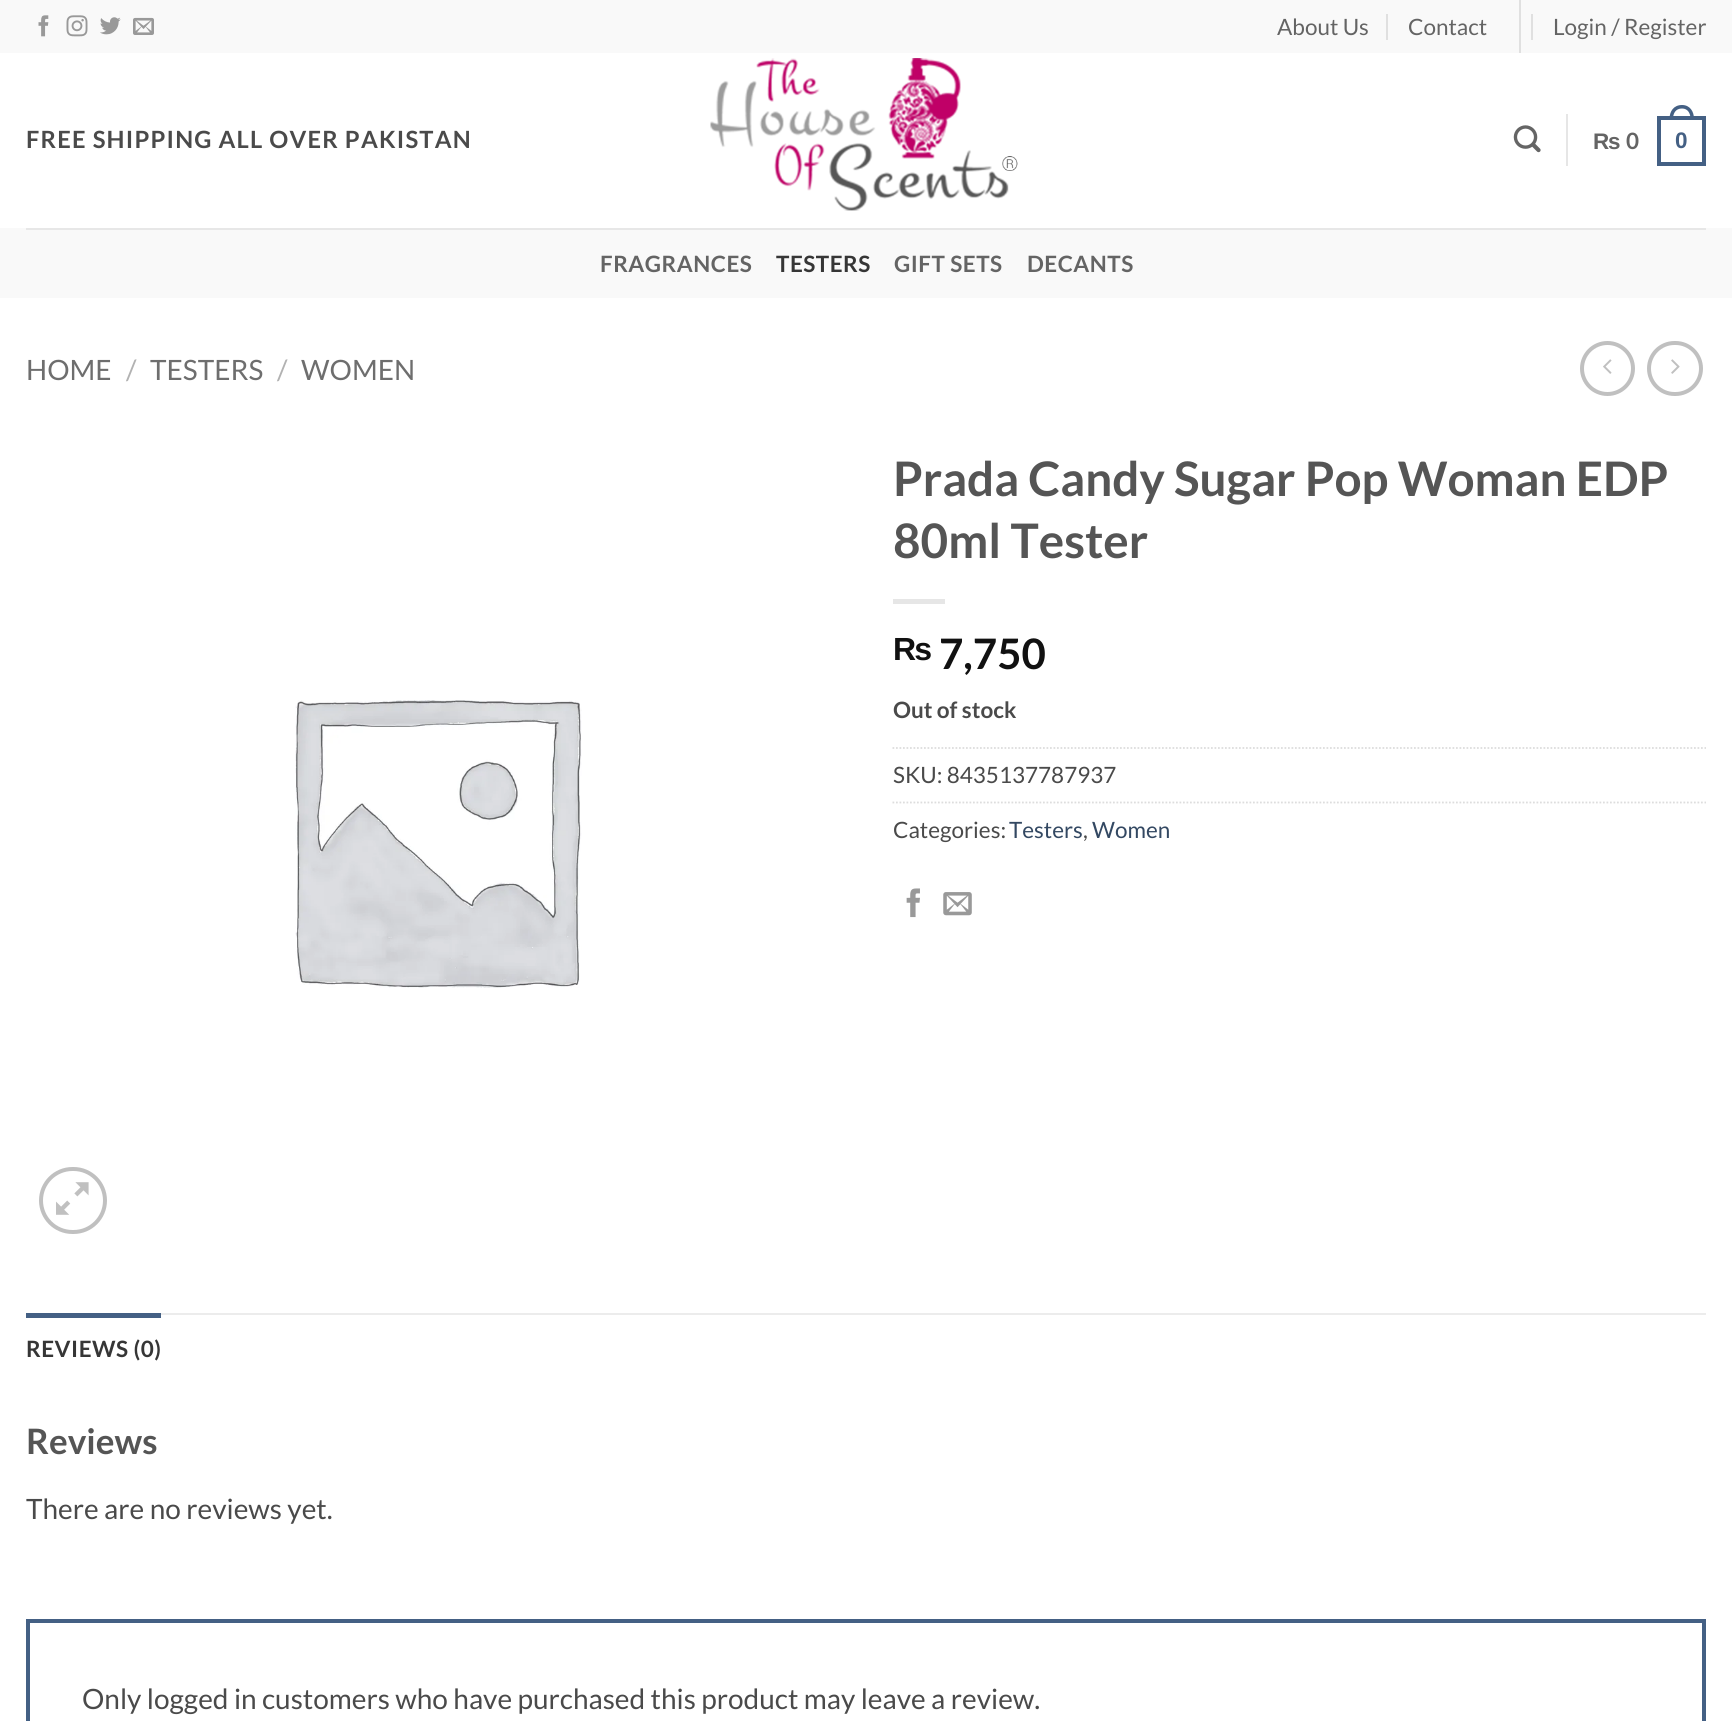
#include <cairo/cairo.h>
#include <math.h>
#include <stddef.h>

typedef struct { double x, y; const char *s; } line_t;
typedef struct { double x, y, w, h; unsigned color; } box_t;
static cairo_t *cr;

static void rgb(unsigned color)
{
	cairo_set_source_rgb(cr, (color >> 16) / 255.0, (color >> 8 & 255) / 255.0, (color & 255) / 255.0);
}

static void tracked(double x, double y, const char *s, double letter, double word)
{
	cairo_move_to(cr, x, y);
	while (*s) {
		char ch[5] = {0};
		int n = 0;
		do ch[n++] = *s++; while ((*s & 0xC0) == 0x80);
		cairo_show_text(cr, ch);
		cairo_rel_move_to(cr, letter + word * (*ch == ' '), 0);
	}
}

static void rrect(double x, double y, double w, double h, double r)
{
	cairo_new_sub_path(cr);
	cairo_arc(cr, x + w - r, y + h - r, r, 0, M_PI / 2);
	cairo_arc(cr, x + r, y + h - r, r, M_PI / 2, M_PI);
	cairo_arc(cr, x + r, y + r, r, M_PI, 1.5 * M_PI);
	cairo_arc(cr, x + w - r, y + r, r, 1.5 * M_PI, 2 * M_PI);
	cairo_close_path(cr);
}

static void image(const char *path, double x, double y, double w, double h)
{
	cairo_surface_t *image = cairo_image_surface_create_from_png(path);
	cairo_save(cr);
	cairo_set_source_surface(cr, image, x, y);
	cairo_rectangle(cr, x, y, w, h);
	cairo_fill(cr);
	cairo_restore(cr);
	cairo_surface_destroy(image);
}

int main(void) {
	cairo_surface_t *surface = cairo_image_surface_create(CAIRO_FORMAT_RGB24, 1732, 1721);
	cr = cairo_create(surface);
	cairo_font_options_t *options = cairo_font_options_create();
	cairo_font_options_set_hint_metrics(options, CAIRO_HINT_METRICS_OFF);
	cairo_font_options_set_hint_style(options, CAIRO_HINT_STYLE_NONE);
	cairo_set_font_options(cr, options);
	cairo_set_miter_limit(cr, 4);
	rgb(0xffffff);
	cairo_paint(cr);
	rgb(0xf9f9f9);
	cairo_rectangle(cr, 0, 0, 1732, 53);
	cairo_fill(cr);
	image("img/1.png", 38, 15, 11, 22);
	image("img/2.png", 66, 15, 22, 22);
	image("img/3.png", 100, 17, 21, 18);
	image("img/4.png", 133, 17, 21, 18);
	{
		static const box_t items[] = {
			{1386, 14, 2, 26, 0xe0e0e0},
			{1519, 0, 2, 53, 0xe0e0e0},
			{1531, 14, 2, 26, 0xe0e0e0},
		};
		for (size_t i = 0; i < sizeof items / sizeof *items; i++) {
			rgb(items[i].color);
			cairo_rectangle(cr, items[i].x, items[i].y, items[i].w, items[i].h);
			cairo_fill(cr);
		}
	}
	image("img/5.png", 710, 58, 308, 153);
	image("img/6.png", 1513, 125, 28, 28);
	rgb(0xe6e6e6);
	cairo_rectangle(cr, 1566, 114, 2, 52);
	cairo_fill(cr);
	cairo_rectangle(cr, 1659, 118, 45, 46);
	rgb(0x446084);
	cairo_set_line_width(cr, 4);
	cairo_stroke(cr);
	cairo_set_fill_rule(cr, CAIRO_FILL_RULE_EVEN_ODD);
	cairo_new_path(cr);
	cairo_move_to(cr, 1682, 105);
	cairo_curve_to(cr, 1690, 105, 1694, 111.5, 1694, 119);
	cairo_line_to(cr, 1669.5, 119);
	cairo_curve_to(cr, 1669.5, 111.5, 1673.5, 105, 1682, 105);
	cairo_close_path(cr);
	cairo_move_to(cr, 1682, 108.5);
	cairo_curve_to(cr, 1688, 108.5, 1690.5, 113.5, 1690.5, 119);
	cairo_line_to(cr, 1673, 119);
	cairo_curve_to(cr, 1673, 113.5, 1675.5, 108.5, 1682, 108.5);
	cairo_close_path(cr);
	cairo_fill(cr);
	rgb(0xf9f9f9);
	cairo_rectangle(cr, 0, 228, 1732, 70);
	cairo_fill(cr);
	rgb(0xe7e7e7);
	cairo_rectangle(cr, 26, 228, 1680, 2);
	cairo_fill(cr);
	cairo_arc(cr, 1607.5, 368.5, 25.5, 0, 2 * M_PI);
	rgb(0xc0c0c0);
	cairo_stroke(cr);
	image("img/7.png", 1603, 359, 9, 15);
	rrect(1649, 343, 52, 51, 25.5);
	cairo_stroke(cr);
	image("img/8.png", 1671, 359, 9, 15);
	rgb(0xe6e6e6);
	cairo_rectangle(cr, 893, 599, 52, 5);
	cairo_fill(cr);
	cairo_new_path(cr);
	cairo_move_to(cr, 892.5, 748);
	cairo_line_to(cr, 1706, 748);
	rgb(0xdddddd);
	cairo_set_line_width(cr, 1.8);
	cairo_set_dash(cr, (double[]){1.75, 1.75}, 2, 0);
	cairo_stroke(cr);
	cairo_new_path(cr);
	cairo_move_to(cr, 892.5, 802.5);
	cairo_line_to(cr, 1706, 802.5);
	cairo_stroke(cr);
	image("img/9.png", 906, 888, 14, 30);
	image("img/10.png", 943, 892, 29, 24);
	image("img/11.png", 295, 700, 287, 288);
	rrect(41, 1169, 64, 63, 31.5);
	rgb(0xc0c0c0);
	cairo_set_line_width(cr, 4);
	cairo_set_dash(cr, NULL, 0, 0);
	cairo_stroke(cr);
	image("img/12.png", 56, 1182, 33, 33);
	rgb(0xececec);
	cairo_rectangle(cr, 161, 1313, 1545, 2);
	cairo_fill(cr);
	rgb(0x446084);
	cairo_rectangle(cr, 26, 1313, 135, 5);
	cairo_fill(cr);
	cairo_rectangle(cr, 28, 1621, 1676, 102);
	cairo_stroke(cr);
	cairo_select_font_face(cr, "Lato", CAIRO_FONT_SLANT_NORMAL, CAIRO_FONT_WEIGHT_NORMAL);
	cairo_set_font_size(cr, 22.5);
	rgb(0x646464);
	{
		static const line_t items[] = {
			{1277, 35, "About Us"},
			{1408, 35, "Contact"},
			{1553, 35, "Login / Register"},
		};
		for (size_t i = 0; i < sizeof items / sizeof *items; i++) {
			cairo_move_to(cr, items[i].x, items[i].y);
			cairo_show_text(cr, items[i].s);
		}
	}
	cairo_select_font_face(cr, "Lato", CAIRO_FONT_SLANT_NORMAL, CAIRO_FONT_WEIGHT_BOLD);
	cairo_set_font_size(cr, 23.75);
	rgb(0x4a4a4a);
	tracked(26, 148, "FREE SHIPPING ALL OVER PAKISTAN", 1.2, 0);
	cairo_select_font_face(cr, "Liberation Sans", CAIRO_FONT_SLANT_NORMAL, CAIRO_FONT_WEIGHT_BOLD);
	cairo_set_font_size(cr, 22.5);
	rgb(0x646464);
	tracked(1593, 149, "₨", 0.5, 0);
	cairo_select_font_face(cr, "Lato", CAIRO_FONT_SLANT_NORMAL, CAIRO_FONT_WEIGHT_BOLD);
	tracked(1626, 149, "0", 0.5, 0);
	cairo_select_font_face(cr, "Liberation Sans", CAIRO_FONT_SLANT_NORMAL, CAIRO_FONT_WEIGHT_BOLD);
	rgb(0x446084);
	tracked(1675, 148, "0", 0.5, 0);
	cairo_select_font_face(cr, "Lato", CAIRO_FONT_SLANT_NORMAL, CAIRO_FONT_WEIGHT_BOLD);
	rgb(0x646464);
	tracked(600, 272, "FRAGRANCES", 0.5, 0);
	rgb(0x363636);
	tracked(776, 272, "TESTERS", 0.5, 0);
	rgb(0x646464);
	tracked(894, 272, "GIFT SETS", 0.5, 0);
	tracked(1027, 272, "DECANTS", 0.5, 0);
	cairo_select_font_face(cr, "Lato", CAIRO_FONT_SLANT_NORMAL, CAIRO_FONT_WEIGHT_NORMAL);
	cairo_set_font_size(cr, 28);
	rgb(0x6e6e6e);
	cairo_move_to(cr, 26, 380);
	cairo_show_text(cr, "HOME");
	rgb(0xb2b2b2);
	cairo_move_to(cr, 126, 380);
	cairo_show_text(cr, "/");
	rgb(0x6e6e6e);
	cairo_move_to(cr, 150, 380);
	cairo_show_text(cr, "TESTERS");
	rgb(0xb2b2b2);
	cairo_move_to(cr, 277, 380);
	cairo_show_text(cr, "/");
	rgb(0x6e6e6e);
	cairo_move_to(cr, 301, 380);
	cairo_show_text(cr, "WOMEN");
	cairo_select_font_face(cr, "Lato", CAIRO_FONT_SLANT_NORMAL, CAIRO_FONT_WEIGHT_BOLD);
	cairo_set_font_size(cr, 47.6);
	rgb(0x555555);
	cairo_move_to(cr, 893, 496);
	cairo_show_text(cr, "Prada Candy Sugar Pop Woman EDP");
	cairo_move_to(cr, 893, 558);
	cairo_show_text(cr, "80ml Tester");
	cairo_select_font_face(cr, "Liberation Sans", CAIRO_FONT_SLANT_NORMAL, CAIRO_FONT_WEIGHT_BOLD);
	cairo_set_font_size(cr, 32);
	rgb(0x111111);
	cairo_move_to(cr, 893, 660);
	cairo_show_text(cr, "₨");
	cairo_select_font_face(cr, "Lato", CAIRO_FONT_SLANT_NORMAL, CAIRO_FONT_WEIGHT_BOLD);
	cairo_set_font_size(cr, 42);
	cairo_move_to(cr, 939, 669);
	cairo_show_text(cr, "7,750");
	cairo_set_font_size(cr, 22.5);
	rgb(0x4a4a4a);
	cairo_move_to(cr, 893, 718);
	cairo_show_text(cr, "Out of stock");
	cairo_select_font_face(cr, "Lato", CAIRO_FONT_SLANT_NORMAL, CAIRO_FONT_WEIGHT_NORMAL);
	cairo_move_to(cr, 893, 783);
	cairo_show_text(cr, "SKU: 8435137787937");
	cairo_move_to(cr, 893, 838);
	cairo_show_text(cr, "Categories:");
	rgb(0x334862);
	cairo_move_to(cr, 1009, 838);
	cairo_show_text(cr, "Testers");
	rgb(0x4a4a4a);
	cairo_move_to(cr, 1083, 838);
	cairo_show_text(cr, ",");
	rgb(0x334862);
	cairo_move_to(cr, 1092, 838);
	cairo_show_text(cr, "Women");
	cairo_select_font_face(cr, "Lato", CAIRO_FONT_SLANT_NORMAL, CAIRO_FONT_WEIGHT_BOLD);
	rgb(0x363636);
	tracked(26, 1357, "REVIEWS (0)", 0.5, 0);
	cairo_set_font_size(cr, 35);
	rgb(0x555555);
	cairo_move_to(cr, 26, 1454);
	cairo_show_text(cr, "Reviews");
	cairo_select_font_face(cr, "Lato", CAIRO_FONT_SLANT_NORMAL, CAIRO_FONT_WEIGHT_NORMAL);
	cairo_set_font_size(cr, 28);
	rgb(0x4a4a4a);
	cairo_move_to(cr, 26, 1519);
	cairo_show_text(cr, "There are no reviews yet.");
	cairo_move_to(cr, 82, 1709);
	cairo_show_text(cr, "Only logged in customers who have purchased this product may leave a review.");
	cairo_surface_write_to_png(surface, "page.png");
	cairo_font_options_destroy(options);
	cairo_destroy(cr);
	cairo_surface_destroy(surface);
	return 0;
}
